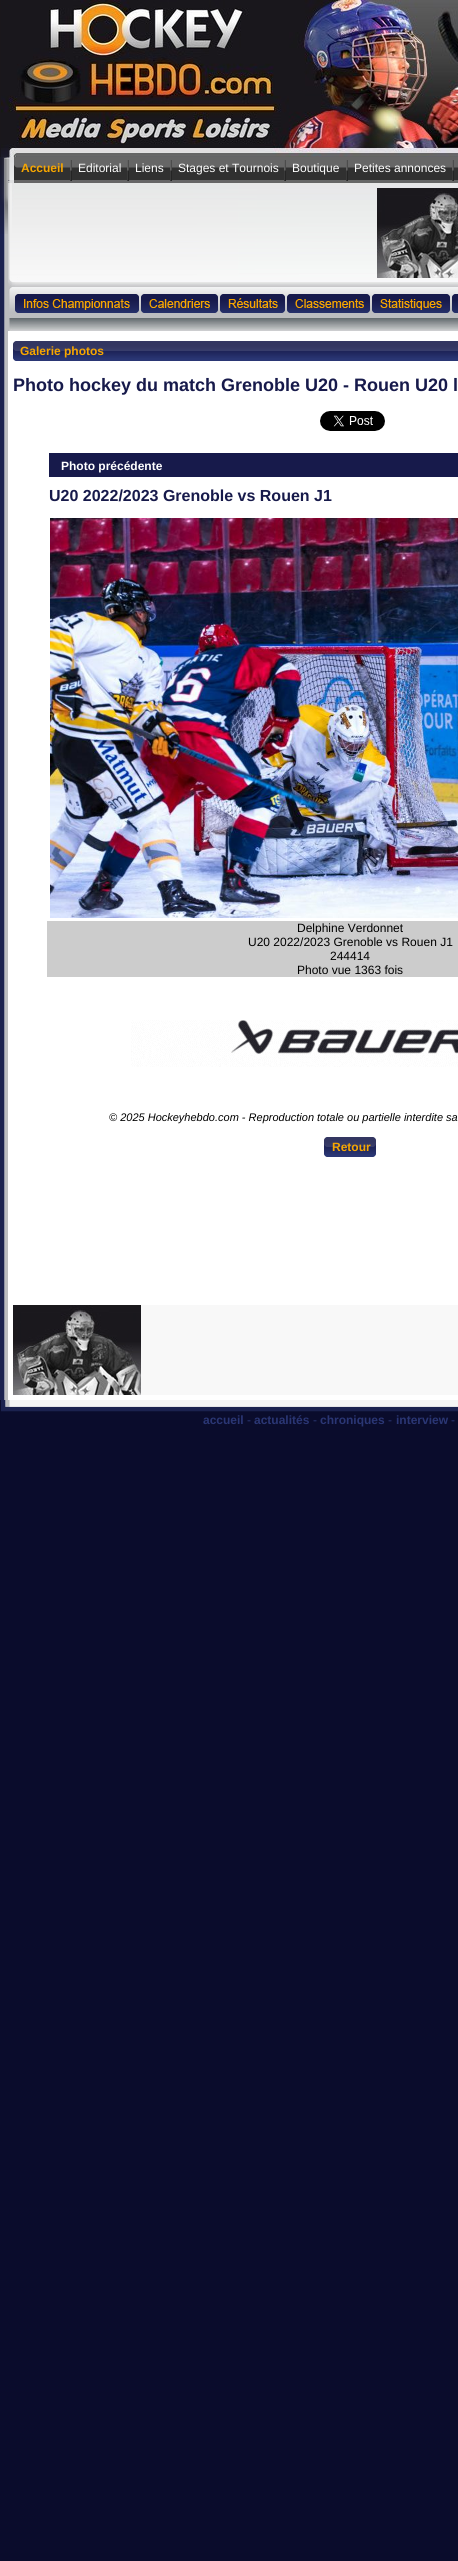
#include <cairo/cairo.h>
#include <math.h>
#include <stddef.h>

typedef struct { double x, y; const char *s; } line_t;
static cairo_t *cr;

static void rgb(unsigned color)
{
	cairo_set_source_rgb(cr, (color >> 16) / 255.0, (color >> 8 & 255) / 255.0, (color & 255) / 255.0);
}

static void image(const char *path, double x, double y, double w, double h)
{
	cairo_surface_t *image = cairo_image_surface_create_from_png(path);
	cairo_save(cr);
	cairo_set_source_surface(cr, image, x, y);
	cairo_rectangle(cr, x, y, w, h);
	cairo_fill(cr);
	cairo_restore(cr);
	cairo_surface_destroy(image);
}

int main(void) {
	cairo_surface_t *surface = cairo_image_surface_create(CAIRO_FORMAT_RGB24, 458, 2561);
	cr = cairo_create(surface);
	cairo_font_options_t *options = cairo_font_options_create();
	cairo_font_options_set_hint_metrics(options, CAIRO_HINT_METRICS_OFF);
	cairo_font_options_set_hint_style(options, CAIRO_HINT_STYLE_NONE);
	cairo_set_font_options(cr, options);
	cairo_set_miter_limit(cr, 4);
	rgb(0x0a0c2c);
	cairo_paint(cr);
	image("img/1.png", 0, 0, 1, 157);
	image("img/2.png", 1, 0, 457, 157);
	image("img/3.png", 0, 234, 8, 1166);
	image("img/4.png", 0, 157, 8, 77);
	image("img/5.png", 8, 157, 450, 26);
	image("img/6.png", 70, 160, 2, 21);
	image("img/6.png", 127, 160, 2, 21);
	image("img/6.png", 170, 160, 2, 21);
	image("img/6.png", 284, 160, 2, 21);
	image("img/6.png", 346, 160, 2, 21);
	image("img/6.png", 452, 160, 2, 21);
	image("img/7.png", 8, 183, 450, 148);
	image("img/8.png", 377, 188, 81, 90);
	image("img/9.png", 15, 294, 124, 19);
	image("img/10.png", 141, 294, 77, 19);
	image("img/11.png", 220, 294, 65, 19);
	image("img/12.png", 287, 294, 83, 19);
	image("img/13.png", 372, 294, 78, 19);
	image("img/14.png", 452, 294, 6, 19);
	rgb(0xffffff);
	cairo_rectangle(cr, 8, 331, 450, 1069);
	cairo_fill(cr);
	image("img/15.png", 16, 341, 4, 20);
	image("img/16.png", 13, 341, 3, 20);
	image("img/17.png", 20, 341, 438, 20);
	image("img/18.png", 320, 411, 65, 20);
	rgb(0x171a4b);
	cairo_rectangle(cr, 49, 453, 409, 24);
	cairo_fill(cr);
	image("img/19.png", 50, 518, 408, 400);
	rgb(0xcccccc);
	cairo_rectangle(cr, 47, 921, 411, 56);
	cairo_fill(cr);
	image("img/20.png", 131, 1020, 327, 47);
	image("img/21.png", 327, 1137, 5, 20);
	image("img/16.png", 324, 1137, 3, 20);
	image("img/22.png", 332, 1137, 39, 20);
	image("img/23.png", 371, 1137, 5, 20);
	rgb(0xf8f8f8);
	cairo_rectangle(cr, 141, 1305, 317, 90);
	cairo_fill(cr);
	image("img/24.png", 13, 1305, 128, 90);
	image("img/25.png", 1, 1400, 457, 12);
	cairo_select_font_face(cr, "Liberation Sans", CAIRO_FONT_SLANT_NORMAL, CAIRO_FONT_WEIGHT_BOLD);
	cairo_set_font_size(cr, 12);
	rgb(0xf7a600);
	cairo_move_to(cr, 21, 172);
	cairo_show_text(cr, "Accueil");
	cairo_select_font_face(cr, "Liberation Sans", CAIRO_FONT_SLANT_NORMAL, CAIRO_FONT_WEIGHT_NORMAL);
	rgb(0xffffff);
	{
		static const line_t items[] = {
			{78, 172, "Editorial"},
			{135, 172, "Liens"},
			{178, 172, "Stages et Tournois"},
			{292, 172, "Boutique"},
			{354, 172, "Petites annonces"},
		};
		for (size_t i = 0; i < sizeof items / sizeof *items; i++) {
			cairo_move_to(cr, items[i].x, items[i].y);
			cairo_show_text(cr, items[i].s);
		}
	}
	cairo_select_font_face(cr, "Liberation Sans", CAIRO_FONT_SLANT_NORMAL, CAIRO_FONT_WEIGHT_BOLD);
	rgb(0xf7a600);
	cairo_move_to(cr, 20, 355);
	cairo_show_text(cr, "Galerie photos");
	cairo_set_font_size(cr, 18);
	rgb(0x171a4b);
	cairo_move_to(cr, 13, 391);
	cairo_show_text(cr, "Photo hockey du match Grenoble U20 - Rouen U20 l");
	cairo_set_font_size(cr, 12);
	rgb(0xffffff);
	cairo_move_to(cr, 61, 470);
	cairo_show_text(cr, "Photo précédente");
	cairo_set_font_size(cr, 16);
	rgb(0x171a4b);
	cairo_move_to(cr, 49, 501);
	cairo_show_text(cr, "U20 2022/2023 Grenoble vs Rouen J1");
	cairo_select_font_face(cr, "Liberation Sans", CAIRO_FONT_SLANT_NORMAL, CAIRO_FONT_WEIGHT_NORMAL);
	cairo_set_font_size(cr, 12);
	rgb(0x000000);
	{
		static const line_t items[] = {
			{297, 932, "Delphine Verdonnet"},
			{248, 946, "U20 2022/2023 Grenoble vs Rouen J1"},
			{330, 960, "244414"},
			{297, 974, "Photo vue 1363 fois"},
		};
		for (size_t i = 0; i < sizeof items / sizeof *items; i++) {
			cairo_move_to(cr, items[i].x, items[i].y);
			cairo_show_text(cr, items[i].s);
		}
	}
	cairo_select_font_face(cr, "Liberation Sans", CAIRO_FONT_SLANT_ITALIC, CAIRO_FONT_WEIGHT_NORMAL);
	cairo_set_font_size(cr, 11);
	cairo_move_to(cr, 109, 1121);
	cairo_show_text(cr, "© 2025 Hockeyhebdo.com - Reproduction totale ou partielle interdite sa");
	cairo_select_font_face(cr, "Liberation Sans", CAIRO_FONT_SLANT_NORMAL, CAIRO_FONT_WEIGHT_BOLD);
	cairo_set_font_size(cr, 12);
	rgb(0xf7a600);
	cairo_move_to(cr, 332, 1151);
	cairo_show_text(cr, "Retour");
	rgb(0x2a3674);
	cairo_move_to(cr, 203, 1424);
	cairo_show_text(cr, "accueil");
	cairo_select_font_face(cr, "Liberation Sans", CAIRO_FONT_SLANT_NORMAL, CAIRO_FONT_WEIGHT_NORMAL);
	cairo_move_to(cr, 247, 1424);
	cairo_show_text(cr, "-");
	cairo_select_font_face(cr, "Liberation Sans", CAIRO_FONT_SLANT_NORMAL, CAIRO_FONT_WEIGHT_BOLD);
	cairo_move_to(cr, 254, 1424);
	cairo_show_text(cr, "actualités");
	cairo_select_font_face(cr, "Liberation Sans", CAIRO_FONT_SLANT_NORMAL, CAIRO_FONT_WEIGHT_NORMAL);
	cairo_move_to(cr, 313, 1424);
	cairo_show_text(cr, "-");
	cairo_select_font_face(cr, "Liberation Sans", CAIRO_FONT_SLANT_NORMAL, CAIRO_FONT_WEIGHT_BOLD);
	cairo_move_to(cr, 320, 1424);
	cairo_show_text(cr, "chroniques");
	cairo_select_font_face(cr, "Liberation Sans", CAIRO_FONT_SLANT_NORMAL, CAIRO_FONT_WEIGHT_NORMAL);
	cairo_move_to(cr, 388, 1424);
	cairo_show_text(cr, "-");
	cairo_select_font_face(cr, "Liberation Sans", CAIRO_FONT_SLANT_NORMAL, CAIRO_FONT_WEIGHT_BOLD);
	cairo_move_to(cr, 396, 1424);
	cairo_show_text(cr, "interview");
	cairo_select_font_face(cr, "Liberation Sans", CAIRO_FONT_SLANT_NORMAL, CAIRO_FONT_WEIGHT_NORMAL);
	cairo_move_to(cr, 451, 1424);
	cairo_show_text(cr, "-");
	cairo_surface_write_to_png(surface, "page.png");
	cairo_font_options_destroy(options);
	cairo_destroy(cr);
	cairo_surface_destroy(surface);
	return 0;
}
